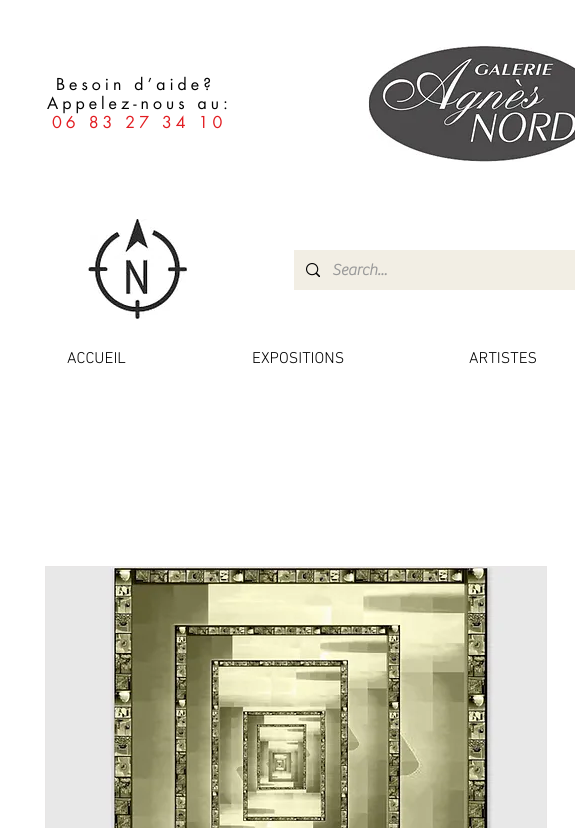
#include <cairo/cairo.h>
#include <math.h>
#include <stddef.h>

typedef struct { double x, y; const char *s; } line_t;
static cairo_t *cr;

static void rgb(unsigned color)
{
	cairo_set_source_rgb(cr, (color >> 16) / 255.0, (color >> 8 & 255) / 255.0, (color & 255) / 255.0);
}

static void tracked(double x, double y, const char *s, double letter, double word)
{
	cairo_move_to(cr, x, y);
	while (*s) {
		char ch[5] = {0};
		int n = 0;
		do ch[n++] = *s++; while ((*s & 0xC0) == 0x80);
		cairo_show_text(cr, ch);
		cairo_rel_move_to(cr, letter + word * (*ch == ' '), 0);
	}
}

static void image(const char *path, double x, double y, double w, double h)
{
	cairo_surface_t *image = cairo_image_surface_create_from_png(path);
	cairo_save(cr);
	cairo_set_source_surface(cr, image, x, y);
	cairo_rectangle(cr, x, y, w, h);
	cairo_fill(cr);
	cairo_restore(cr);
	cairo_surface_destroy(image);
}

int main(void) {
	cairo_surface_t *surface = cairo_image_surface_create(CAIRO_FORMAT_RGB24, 575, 828);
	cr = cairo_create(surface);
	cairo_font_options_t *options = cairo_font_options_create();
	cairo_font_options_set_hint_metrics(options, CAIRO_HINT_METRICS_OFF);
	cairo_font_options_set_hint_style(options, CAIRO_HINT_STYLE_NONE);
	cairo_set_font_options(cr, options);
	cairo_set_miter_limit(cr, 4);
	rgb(0xffffff);
	cairo_paint(cr);
	image("img/1.png", 368, 44, 207, 118);
	image("img/2.png", 86, 219, 104, 100);
	rgb(0xf2eee4);
	cairo_rectangle(cr, 294, 250, 281, 40);
	cairo_fill(cr);
	image("img/3.png", 306, 263, 14, 14);
	cairo_rectangle(cr, 45.5, 566.5, 501, 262);
	rgb(0xe8e6e6);
	cairo_set_line_width(cr, 1);
	cairo_stroke(cr);
	image("img/4.png", 46, 567, 500, 261);
	cairo_select_font_face(cr, "futura", CAIRO_FONT_SLANT_NORMAL, CAIRO_FONT_WEIGHT_NORMAL);
	cairo_set_font_size(cr, 16);
	rgb(0x000000);
	tracked(56, 90, "Besoin d’aide?", 4, 0);
	tracked(47, 109, "Appelez-nous au:", 4, 0);
	rgb(0xe21c21);
	tracked(52, 128, "06 83 27 34 10", 4, 0);
	cairo_select_font_face(cr, "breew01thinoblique", CAIRO_FONT_SLANT_NORMAL, CAIRO_FONT_WEIGHT_BOLD);
	rgb(0x999999);
	cairo_move_to(cr, 332, 275);
	cairo_show_text(cr, "Search...");
	cairo_select_font_face(cr, "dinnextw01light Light", CAIRO_FONT_SLANT_NORMAL, CAIRO_FONT_WEIGHT_NORMAL);
	rgb(0x000000);
	{
		static const line_t items[] = {
			{67, 363, "ACCUEIL"},
			{252, 363, "EXPOSITIONS"},
			{469, 363, "ARTISTES"},
		};
		for (size_t i = 0; i < sizeof items / sizeof *items; i++) {
			cairo_move_to(cr, items[i].x, items[i].y);
			cairo_show_text(cr, items[i].s);
		}
	}
	cairo_surface_write_to_png(surface, "page.png");
	cairo_font_options_destroy(options);
	cairo_destroy(cr);
	cairo_surface_destroy(surface);
	return 0;
}
